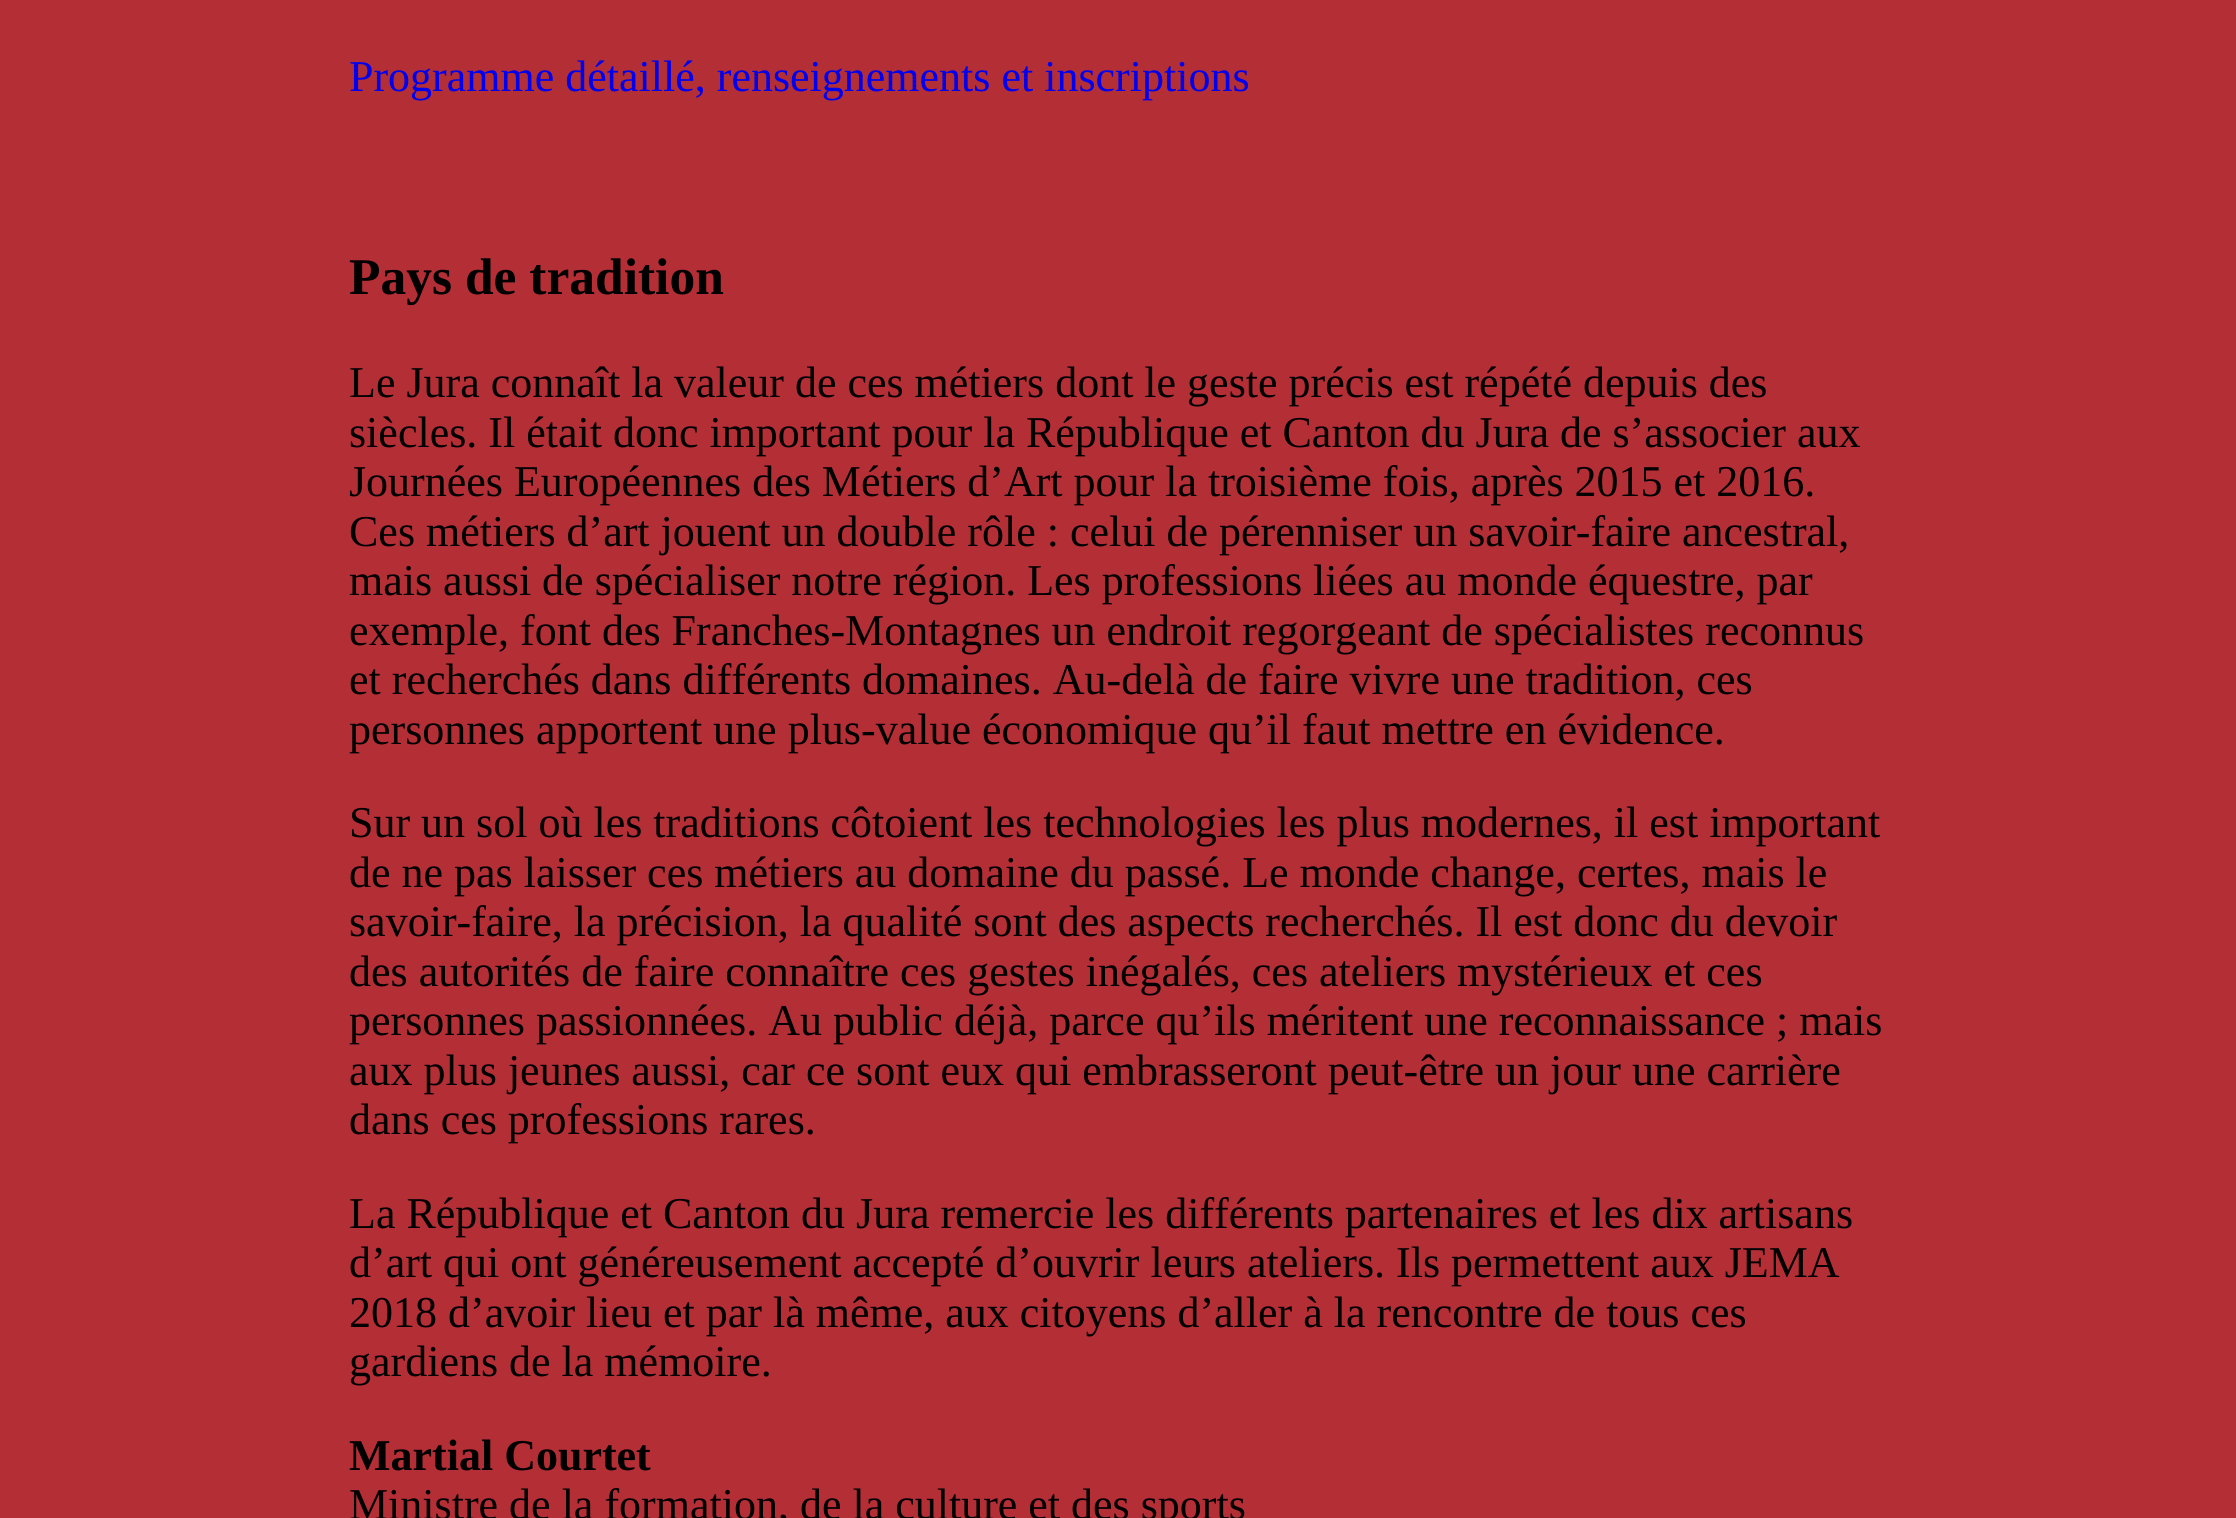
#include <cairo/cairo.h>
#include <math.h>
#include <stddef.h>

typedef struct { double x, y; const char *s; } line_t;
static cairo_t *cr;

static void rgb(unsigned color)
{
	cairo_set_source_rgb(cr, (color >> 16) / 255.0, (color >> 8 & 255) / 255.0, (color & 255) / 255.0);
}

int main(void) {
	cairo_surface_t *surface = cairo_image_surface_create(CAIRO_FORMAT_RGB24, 2236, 1518);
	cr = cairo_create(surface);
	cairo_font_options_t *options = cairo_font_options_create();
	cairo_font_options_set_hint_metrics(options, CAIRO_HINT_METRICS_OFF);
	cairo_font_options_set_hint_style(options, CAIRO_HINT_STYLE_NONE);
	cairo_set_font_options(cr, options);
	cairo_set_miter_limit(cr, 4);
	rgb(0xb42e35);
	cairo_paint(cr);
	cairo_select_font_face(cr, "Liberation Serif", CAIRO_FONT_SLANT_NORMAL, CAIRO_FONT_WEIGHT_NORMAL);
	cairo_set_font_size(cr, 44);
	rgb(0x0000ee);
	cairo_move_to(cr, 349, 91);
	cairo_show_text(cr, "Programme détaillé, renseignements et inscriptions");
	cairo_select_font_face(cr, "Liberation Serif", CAIRO_FONT_SLANT_NORMAL, CAIRO_FONT_WEIGHT_BOLD);
	cairo_set_font_size(cr, 51.5);
	rgb(0x000000);
	cairo_move_to(cr, 349, 294);
	cairo_show_text(cr, "Pays de tradition");
	cairo_select_font_face(cr, "Liberation Serif", CAIRO_FONT_SLANT_NORMAL, CAIRO_FONT_WEIGHT_NORMAL);
	cairo_set_font_size(cr, 44);
	{
		static const line_t items[] = {
			{349, 397, "Le Jura connaît la valeur de ces métiers dont le geste précis est répété depuis des"},
			{349, 447, "siècles. Il était donc important pour la République et Canton du Jura de s’associer aux"},
			{349, 496, "Journées Européennes des Métiers d’Art pour la troisième fois, après 2015 et 2016."},
			{349, 546, "Ces métiers d’art jouent un double rôle : celui de pérenniser un savoir-faire ancestral,"},
			{349, 595, "mais aussi de spécialiser notre région. Les professions liées au monde équestre, par"},
			{349, 645, "exemple, font des Franches-Montagnes un endroit regorgeant de spécialistes reconnus"},
			{349, 694, "et recherchés dans différents domaines. Au-delà de faire vivre une tradition, ces"},
			{349, 744, "personnes apportent une plus-value économique qu’il faut mettre en évidence."},
			{349, 837, "Sur un sol où les traditions côtoient les technologies les plus modernes, il est important"},
			{349, 887, "de ne pas laisser ces métiers au domaine du passé. Le monde change, certes, mais le"},
			{349, 936, "savoir-faire, la précision, la qualité sont des aspects recherchés. Il est donc du devoir"},
			{349, 986, "des autorités de faire connaître ces gestes inégalés, ces ateliers mystérieux et ces"},
			{349, 1035, "personnes passionnées. Au public déjà, parce qu’ils méritent une reconnaissance ; mais"},
			{349, 1085, "aux plus jeunes aussi, car ce sont eux qui embrasseront peut-être un jour une carrière"},
			{349, 1134, "dans ces professions rares."},
			{349, 1228, "La République et Canton du Jura remercie les différents partenaires et les dix artisans"},
			{349, 1277, "d’art qui ont généreusement accepté d’ouvrir leurs ateliers. Ils permettent aux JEMA"},
			{349, 1327, "2018 d’avoir lieu et par là même, aux citoyens d’aller à la rencontre de tous ces"},
			{349, 1376, "gardiens de la mémoire."},
		};
		for (size_t i = 0; i < sizeof items / sizeof *items; i++) {
			cairo_move_to(cr, items[i].x, items[i].y);
			cairo_show_text(cr, items[i].s);
		}
	}
	cairo_select_font_face(cr, "Liberation Serif", CAIRO_FONT_SLANT_NORMAL, CAIRO_FONT_WEIGHT_BOLD);
	cairo_move_to(cr, 349, 1470);
	cairo_show_text(cr, "Martial Courtet");
	cairo_select_font_face(cr, "Liberation Serif", CAIRO_FONT_SLANT_NORMAL, CAIRO_FONT_WEIGHT_NORMAL);
	cairo_move_to(cr, 349, 1519);
	cairo_show_text(cr, "Ministre de la formation, de la culture et des sports");
	cairo_surface_write_to_png(surface, "page.png");
	cairo_font_options_destroy(options);
	cairo_destroy(cr);
	cairo_surface_destroy(surface);
	return 0;
}
